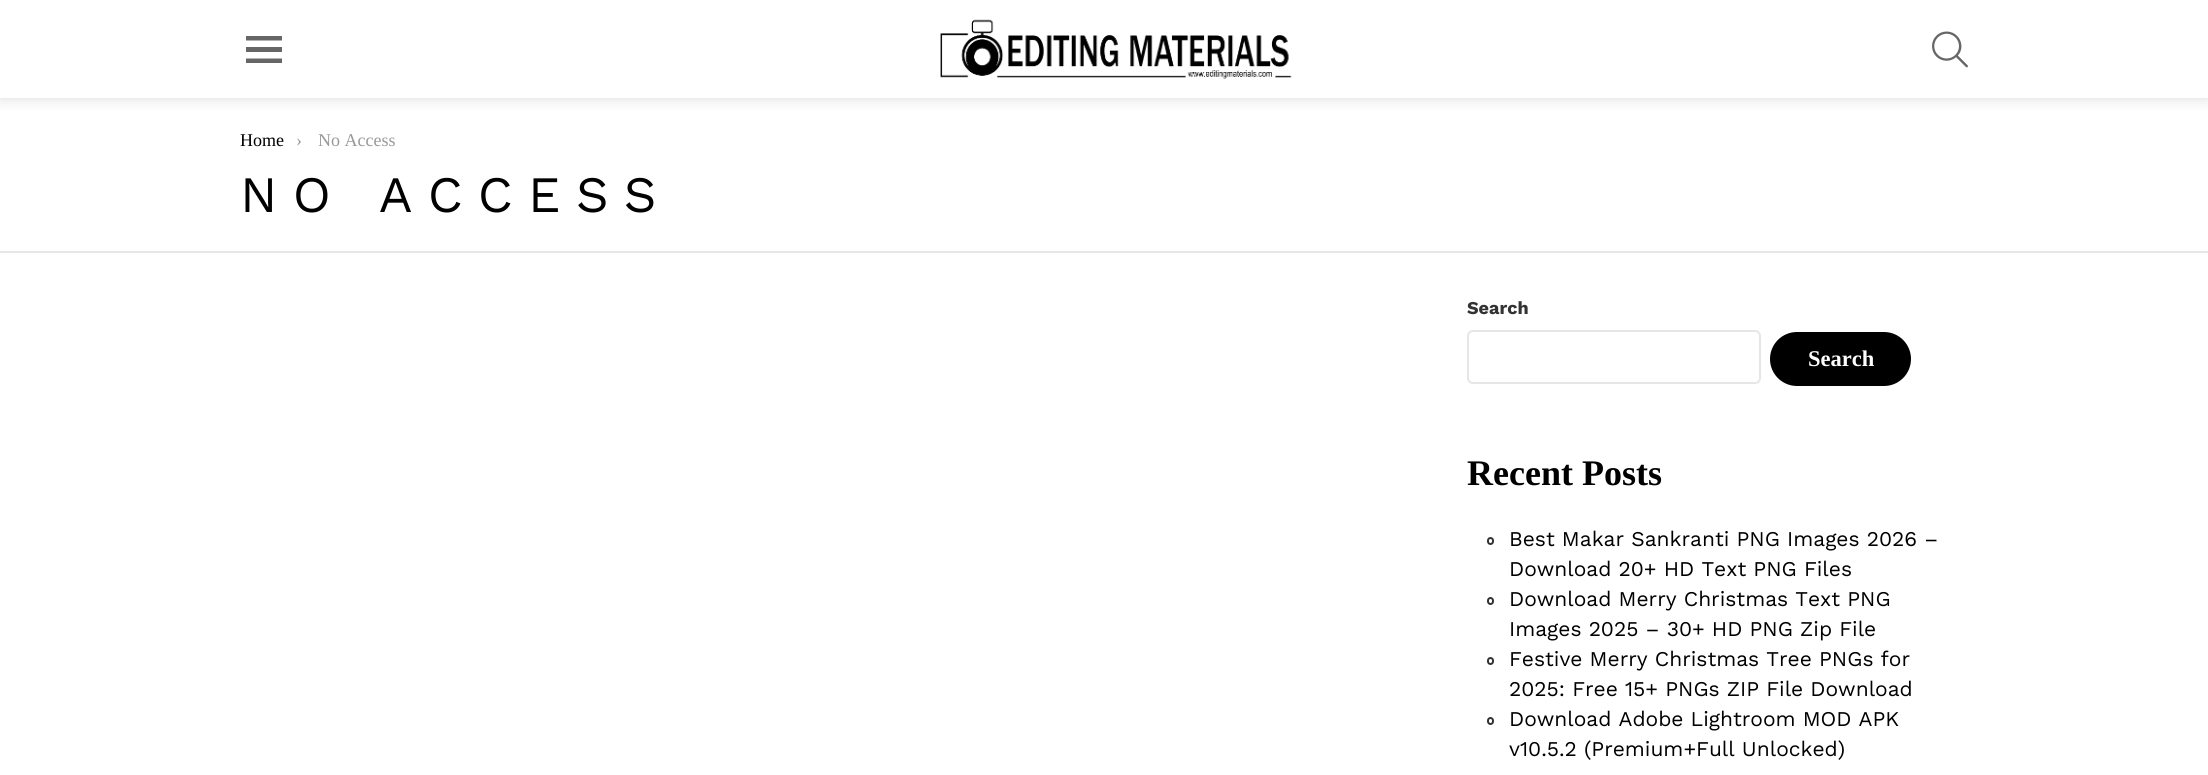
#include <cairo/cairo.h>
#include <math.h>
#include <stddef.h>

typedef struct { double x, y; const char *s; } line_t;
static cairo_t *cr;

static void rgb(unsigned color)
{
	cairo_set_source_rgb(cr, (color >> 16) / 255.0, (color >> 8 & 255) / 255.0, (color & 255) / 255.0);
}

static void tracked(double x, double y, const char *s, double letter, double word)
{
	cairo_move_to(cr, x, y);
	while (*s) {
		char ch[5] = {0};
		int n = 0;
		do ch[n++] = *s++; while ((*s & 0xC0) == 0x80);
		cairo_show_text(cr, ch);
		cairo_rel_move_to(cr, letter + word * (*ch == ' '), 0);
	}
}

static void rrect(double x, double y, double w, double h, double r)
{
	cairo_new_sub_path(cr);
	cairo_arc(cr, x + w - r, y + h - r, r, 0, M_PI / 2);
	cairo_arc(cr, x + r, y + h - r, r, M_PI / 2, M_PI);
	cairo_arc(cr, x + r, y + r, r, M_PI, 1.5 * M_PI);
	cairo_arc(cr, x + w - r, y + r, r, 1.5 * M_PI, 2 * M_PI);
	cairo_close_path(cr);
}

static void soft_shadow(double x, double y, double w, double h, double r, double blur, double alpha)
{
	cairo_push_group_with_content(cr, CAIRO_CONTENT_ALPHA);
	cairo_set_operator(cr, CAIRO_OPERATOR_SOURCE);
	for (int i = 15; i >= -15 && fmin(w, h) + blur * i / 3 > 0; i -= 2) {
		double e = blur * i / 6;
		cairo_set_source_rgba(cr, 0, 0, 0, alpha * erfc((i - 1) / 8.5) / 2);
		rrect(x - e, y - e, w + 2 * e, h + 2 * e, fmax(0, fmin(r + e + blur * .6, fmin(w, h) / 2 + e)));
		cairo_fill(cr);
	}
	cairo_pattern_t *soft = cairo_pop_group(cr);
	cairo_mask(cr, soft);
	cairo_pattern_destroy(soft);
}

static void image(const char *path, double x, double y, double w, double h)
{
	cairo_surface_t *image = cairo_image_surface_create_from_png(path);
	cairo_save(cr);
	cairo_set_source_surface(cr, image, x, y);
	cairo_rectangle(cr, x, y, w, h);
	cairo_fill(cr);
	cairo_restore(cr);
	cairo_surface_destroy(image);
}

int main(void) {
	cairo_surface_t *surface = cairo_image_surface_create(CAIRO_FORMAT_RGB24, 2208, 775);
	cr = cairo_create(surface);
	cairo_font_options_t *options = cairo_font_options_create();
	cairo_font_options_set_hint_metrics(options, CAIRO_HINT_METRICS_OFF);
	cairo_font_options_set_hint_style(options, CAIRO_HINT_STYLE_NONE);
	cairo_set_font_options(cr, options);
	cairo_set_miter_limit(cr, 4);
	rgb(0xffffff);
	cairo_paint(cr);
	rgb(0x000000);
	soft_shadow(0, 0, 2208, 98, 0, 7.5, 0.15);
	rgb(0xffffff);
	cairo_rectangle(cr, 0, 0, 2208, 98);
	cairo_fill(cr);
	rgb(0x666666);
	cairo_new_path(cr);
	cairo_move_to(cr, 246, 36);
	cairo_line_to(cr, 282, 36);
	cairo_line_to(cr, 282, 40.5);
	cairo_line_to(cr, 246, 40.5);
	cairo_close_path(cr);
	cairo_move_to(cr, 246, 47);
	cairo_line_to(cr, 282, 47);
	cairo_line_to(cr, 282, 52);
	cairo_line_to(cr, 246, 52);
	cairo_close_path(cr);
	cairo_move_to(cr, 246, 58.5);
	cairo_line_to(cr, 282, 58.5);
	cairo_line_to(cr, 282, 63);
	cairo_line_to(cr, 246, 63);
	cairo_close_path(cr);
	cairo_fill(cr);
	image("img/1.png", 940, 19, 352, 60);
	image("img/2.png", 1932, 31, 36, 37);
	rgb(0xe6e6e6);
	cairo_rectangle(cr, 0, 251, 2208, 2);
	cairo_fill(cr);
	rrect(1468, 331, 292, 52, 5);
	cairo_stroke(cr);
	rgb(0x000000);
	rrect(1771.5, 333.5, 138, 51, 25.5);
	cairo_fill_preserve(cr);
	cairo_set_line_width(cr, 3);
	cairo_stroke(cr);
	rrect(1488, 538, 5, 6, 2.5);
	rgb(0x333333);
	cairo_set_line_width(cr, 2);
	cairo_stroke(cr);
	rrect(1488, 598, 5, 6, 2.5);
	cairo_stroke(cr);
	rrect(1488, 658, 5, 6, 2.5);
	cairo_stroke(cr);
	rrect(1488, 718, 5, 6, 2.5);
	cairo_stroke(cr);
	cairo_select_font_face(cr, "Liberation Serif", CAIRO_FONT_SLANT_NORMAL, CAIRO_FONT_WEIGHT_NORMAL);
	cairo_set_font_size(cr, 18);
	rgb(0x000000);
	cairo_move_to(cr, 240, 146);
	cairo_show_text(cr, "Home");
	rgb(0x999999);
	cairo_move_to(cr, 296, 146);
	cairo_show_text(cr, "›");
	cairo_move_to(cr, 318, 146);
	cairo_show_text(cr, "No Access");
	cairo_select_font_face(cr, "Work Sans", CAIRO_FONT_SLANT_NORMAL, CAIRO_FONT_WEIGHT_NORMAL);
	cairo_set_font_size(cr, 51);
	rgb(0x000000);
	tracked(240, 212, "NO ACCESS", 15.25, 0);
	cairo_select_font_face(cr, "Work Sans", CAIRO_FONT_SLANT_NORMAL, CAIRO_FONT_WEIGHT_BOLD);
	cairo_set_font_size(cr, 18);
	rgb(0x333333);
	cairo_move_to(cr, 1467, 314);
	cairo_show_text(cr, "Search");
	cairo_select_font_face(cr, "Liberation Serif", CAIRO_FONT_SLANT_NORMAL, CAIRO_FONT_WEIGHT_BOLD);
	cairo_set_font_size(cr, 22.5);
	rgb(0xffffff);
	cairo_move_to(cr, 1808, 366);
	cairo_show_text(cr, "Search");
	cairo_set_font_size(cr, 36);
	rgb(0x000000);
	cairo_move_to(cr, 1467, 485);
	cairo_show_text(cr, "Recent Posts");
	cairo_select_font_face(cr, "Work Sans", CAIRO_FONT_SLANT_NORMAL, CAIRO_FONT_WEIGHT_NORMAL);
	cairo_set_font_size(cr, 21);
	{
		static const line_t items[] = {
			{1509, 546, "Best Makar Sankranti PNG Images 2026 –"},
			{1509, 576, "Download 20+ HD Text PNG Files"},
			{1509, 606, "Download Merry Christmas Text PNG"},
			{1509, 636, "Images 2025 – 30+ HD PNG Zip File"},
			{1509, 666, "Festive Merry Christmas Tree PNGs for"},
			{1509, 696, "2025: Free 15+ PNGs ZIP File Download"},
			{1509, 726, "Download Adobe Lightroom MOD APK"},
			{1509, 756, "v10.5.2 (Premium+Full Unlocked)"},
		};
		for (size_t i = 0; i < sizeof items / sizeof *items; i++) {
			cairo_move_to(cr, items[i].x, items[i].y);
			cairo_show_text(cr, items[i].s);
		}
	}
	cairo_surface_write_to_png(surface, "page.png");
	cairo_font_options_destroy(options);
	cairo_destroy(cr);
	cairo_surface_destroy(surface);
	return 0;
}
